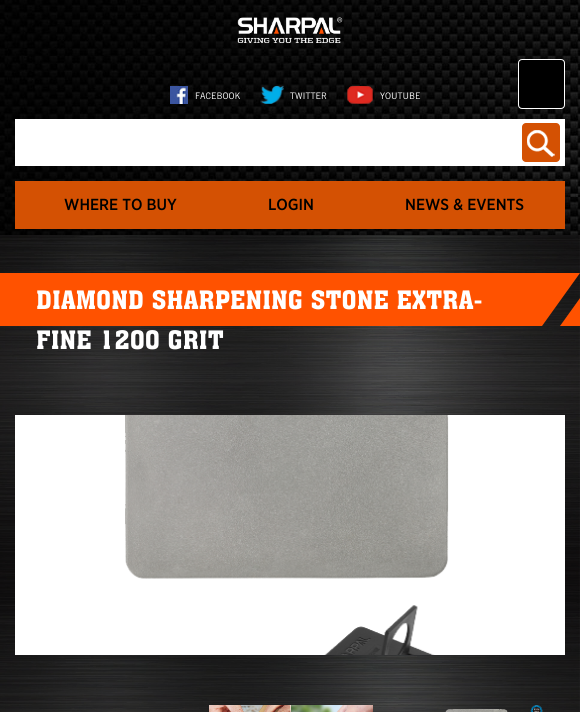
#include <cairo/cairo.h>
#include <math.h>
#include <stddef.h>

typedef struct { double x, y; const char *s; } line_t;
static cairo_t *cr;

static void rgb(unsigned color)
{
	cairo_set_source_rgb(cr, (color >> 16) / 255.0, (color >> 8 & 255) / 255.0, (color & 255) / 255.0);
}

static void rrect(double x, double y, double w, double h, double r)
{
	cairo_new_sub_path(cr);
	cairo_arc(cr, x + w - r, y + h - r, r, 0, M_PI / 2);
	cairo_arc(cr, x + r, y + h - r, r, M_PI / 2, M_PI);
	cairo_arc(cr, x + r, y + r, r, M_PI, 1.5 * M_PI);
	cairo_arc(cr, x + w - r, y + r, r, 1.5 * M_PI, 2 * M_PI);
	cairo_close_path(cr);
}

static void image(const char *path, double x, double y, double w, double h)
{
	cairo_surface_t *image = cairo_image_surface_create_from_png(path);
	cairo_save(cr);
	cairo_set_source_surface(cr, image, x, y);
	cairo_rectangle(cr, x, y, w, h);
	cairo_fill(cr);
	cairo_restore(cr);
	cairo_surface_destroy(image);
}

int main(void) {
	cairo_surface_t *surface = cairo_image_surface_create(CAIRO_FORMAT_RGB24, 580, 712);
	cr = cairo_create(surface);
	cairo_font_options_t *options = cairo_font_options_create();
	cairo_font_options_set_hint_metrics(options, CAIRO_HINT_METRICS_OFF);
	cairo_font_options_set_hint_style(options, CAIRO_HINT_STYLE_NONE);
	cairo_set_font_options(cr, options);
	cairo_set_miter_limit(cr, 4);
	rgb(0xffffff);
	cairo_paint(cr);
	image("img/1.png", 0, 0, 580, 235);
	image("img/2.png", 237, 17, 106, 26);
	image("img/3.png", 170, 86, 18, 18);
	image("img/4.png", 260, 86, 24, 18);
	image("img/5.png", 347, 86, 26, 18);
	rgb(0x000000);
	rrect(518.5, 59.5, 46, 49, 3.5);
	cairo_fill_preserve(cr);
	rgb(0xffffff);
	cairo_set_line_width(cr, 1);
	cairo_stroke(cr);
	cairo_rectangle(cr, 15, 119, 550, 47);
	cairo_fill(cr);
	rgb(0xd45103);
	rrect(522, 123, 38, 39, 4);
	cairo_fill(cr);
	image("img/6.png", 527, 130, 28, 27);
	cairo_rectangle(cr, 15, 181, 550, 48);
	cairo_fill(cr);
	image("img/7.png", 0, 235, 580, 477);
	rgb(0xff5200);
	cairo_new_path(cr);
	cairo_move_to(cr, 0, 273);
	cairo_line_to(cr, 580, 273);
	cairo_line_to(cr, 542, 326);
	cairo_line_to(cr, 0, 326);
	cairo_close_path(cr);
	cairo_fill(cr);
	cairo_new_path(cr);
	cairo_move_to(cr, 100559, 326);
	cairo_line_to(cr, 560, 326);
	cairo_line_to(cr, 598, 273);
	cairo_line_to(cr, 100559, 273);
	cairo_close_path(cr);
	cairo_fill(cr);
	rgb(0xffffff);
	cairo_rectangle(cr, 15, 415, 550, 240);
	cairo_fill(cr);
	image("img/8.png", 125, 415, 324, 240);
	image("img/9.png", 209, 705, 164, 7);
	image("img/10.png", 445, 705, 98, 7);
	cairo_select_font_face(cr, "Trade Gothic", CAIRO_FONT_SLANT_NORMAL, CAIRO_FONT_WEIGHT_NORMAL);
	cairo_set_font_size(cr, 9);
	{
		static const line_t items[] = {
			{195, 99, "FACEBOOK"},
			{290, 99, "TWITTER"},
			{380, 99, "YOUTUBE"},
		};
		for (size_t i = 0; i < sizeof items / sizeof *items; i++) {
			cairo_move_to(cr, items[i].x, items[i].y);
			cairo_show_text(cr, items[i].s);
		}
	}
	cairo_select_font_face(cr, "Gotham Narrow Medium", CAIRO_FONT_SLANT_NORMAL, CAIRO_FONT_WEIGHT_NORMAL);
	cairo_set_font_size(cr, 16);
	rgb(0x000000);
	{
		static const line_t items[] = {
			{64, 210, "WHERE TO BUY"},
			{268, 210, "LOGIN"},
			{405, 210, "NEWS & EVENTS"},
		};
		for (size_t i = 0; i < sizeof items / sizeof *items; i++) {
			cairo_move_to(cr, items[i].x, items[i].y);
			cairo_show_text(cr, items[i].s);
		}
	}
	cairo_select_font_face(cr, "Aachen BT", CAIRO_FONT_SLANT_NORMAL, CAIRO_FONT_WEIGHT_NORMAL);
	cairo_set_font_size(cr, 25);
	rgb(0xffffff);
	cairo_move_to(cr, 36, 309);
	cairo_show_text(cr, "DIAMOND SHARPENING STONE EXTRA-");
	cairo_move_to(cr, 36, 349);
	cairo_show_text(cr, "FINE 1200 GRIT");
	cairo_surface_write_to_png(surface, "page.png");
	cairo_font_options_destroy(options);
	cairo_destroy(cr);
	cairo_surface_destroy(surface);
	return 0;
}
